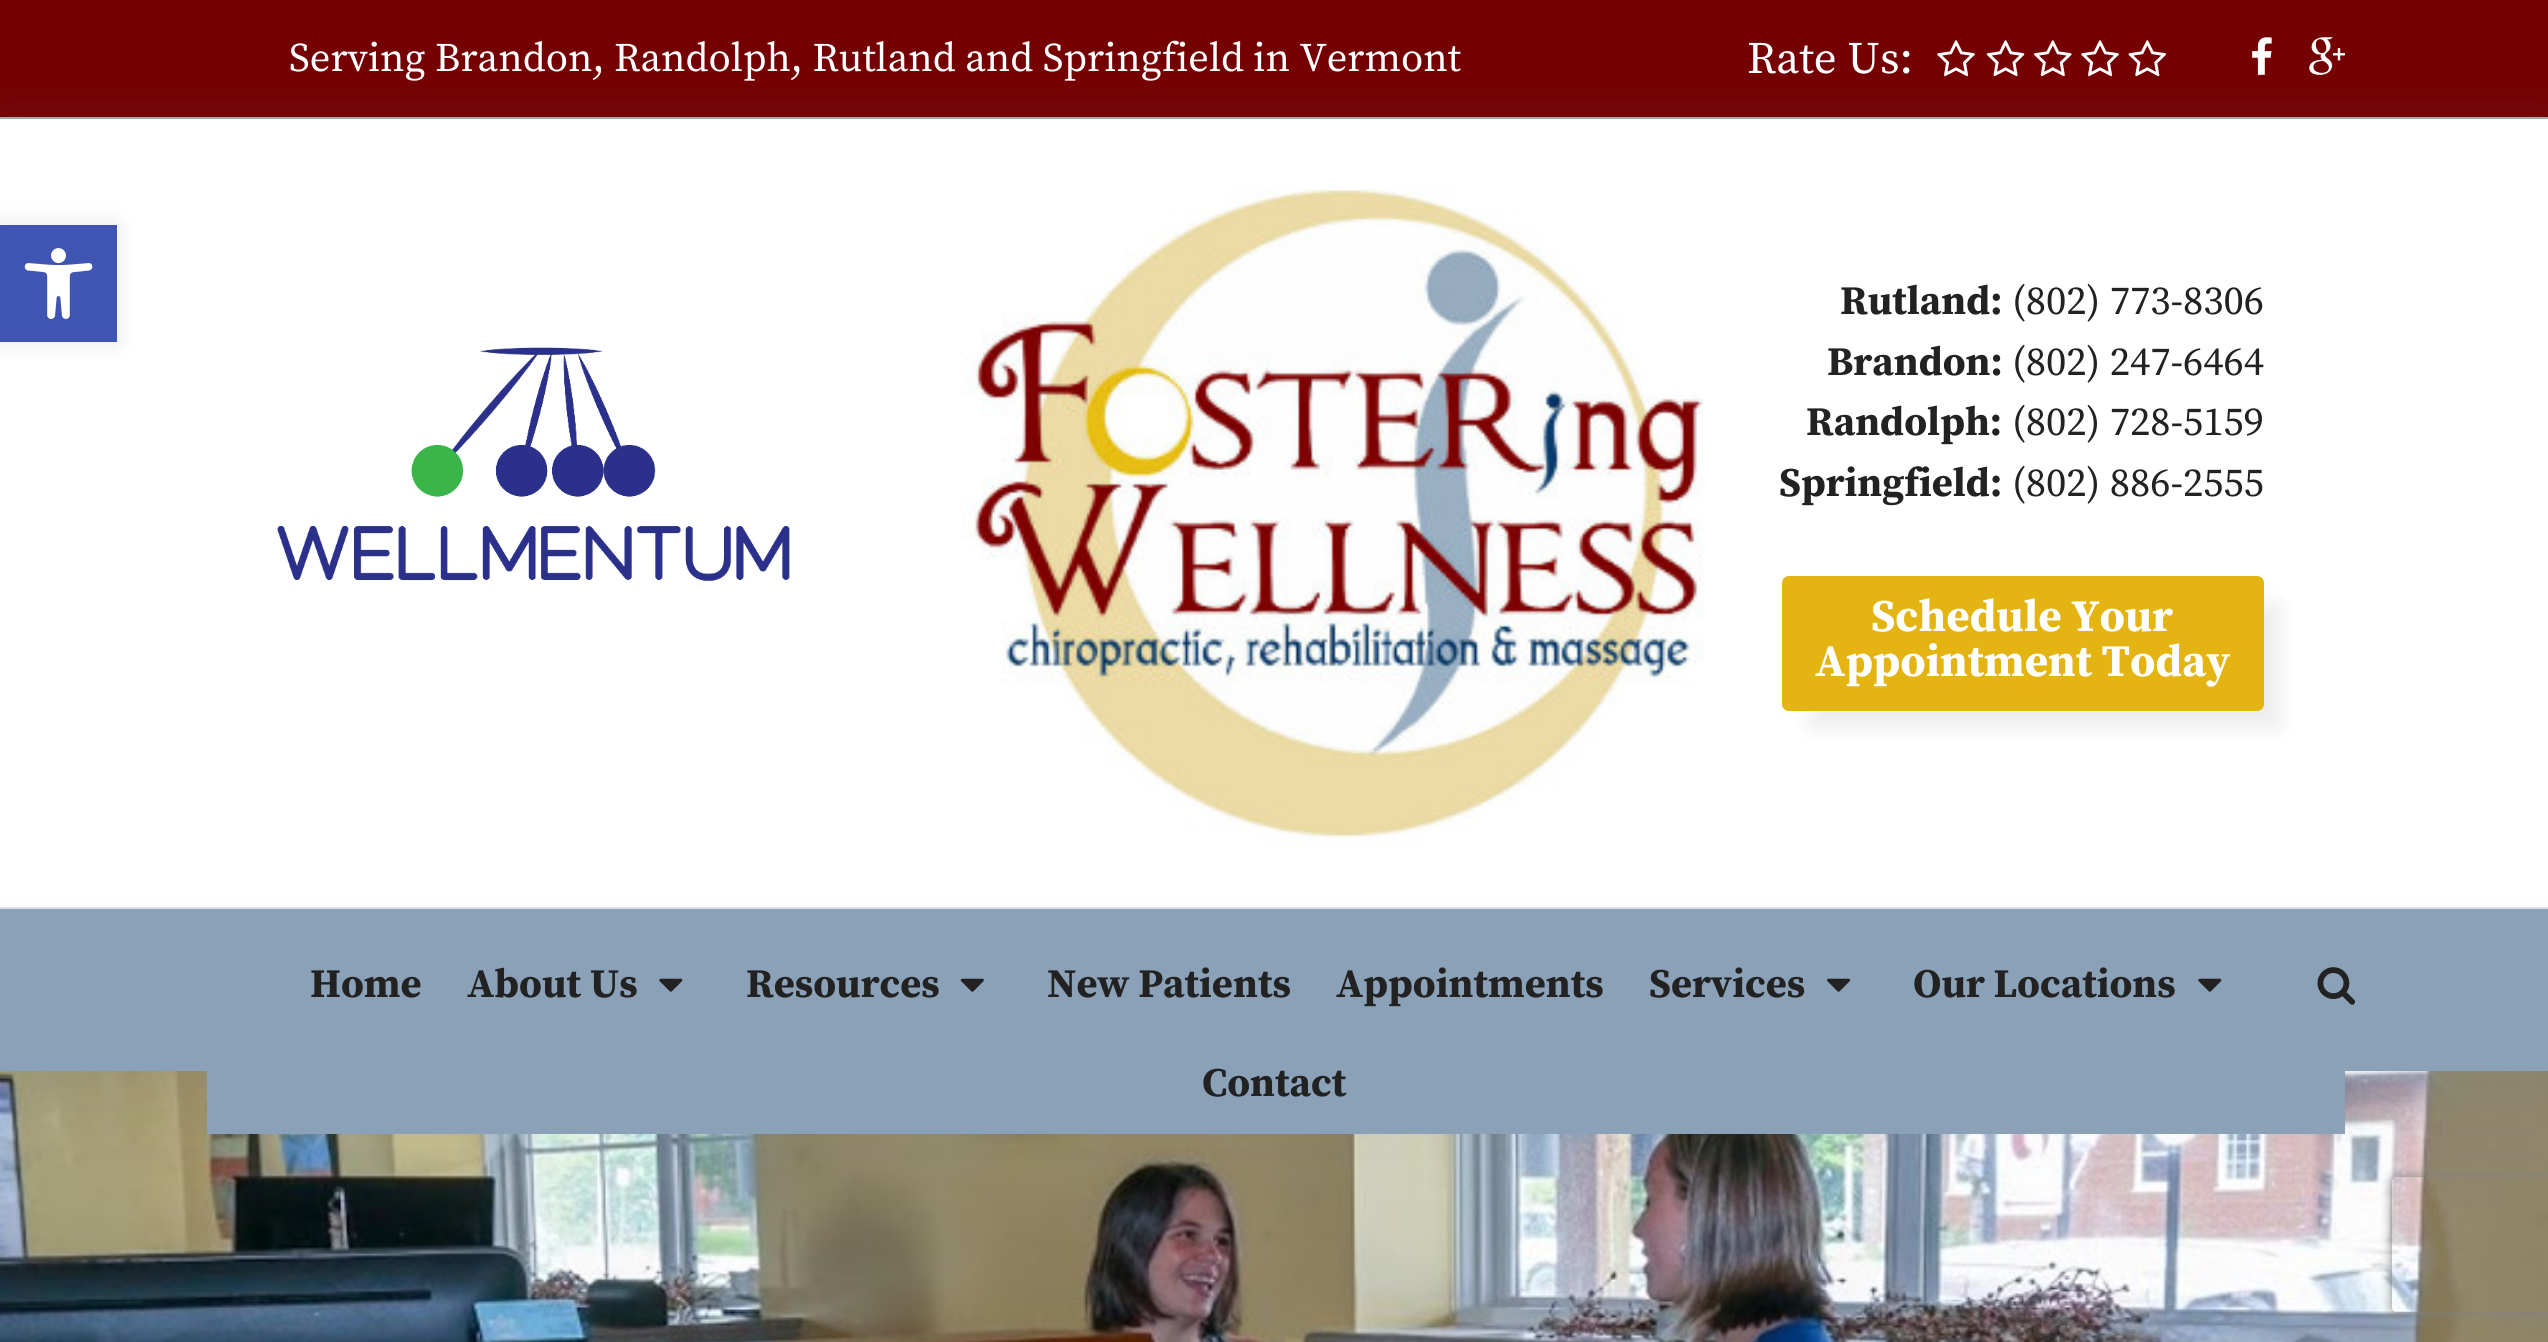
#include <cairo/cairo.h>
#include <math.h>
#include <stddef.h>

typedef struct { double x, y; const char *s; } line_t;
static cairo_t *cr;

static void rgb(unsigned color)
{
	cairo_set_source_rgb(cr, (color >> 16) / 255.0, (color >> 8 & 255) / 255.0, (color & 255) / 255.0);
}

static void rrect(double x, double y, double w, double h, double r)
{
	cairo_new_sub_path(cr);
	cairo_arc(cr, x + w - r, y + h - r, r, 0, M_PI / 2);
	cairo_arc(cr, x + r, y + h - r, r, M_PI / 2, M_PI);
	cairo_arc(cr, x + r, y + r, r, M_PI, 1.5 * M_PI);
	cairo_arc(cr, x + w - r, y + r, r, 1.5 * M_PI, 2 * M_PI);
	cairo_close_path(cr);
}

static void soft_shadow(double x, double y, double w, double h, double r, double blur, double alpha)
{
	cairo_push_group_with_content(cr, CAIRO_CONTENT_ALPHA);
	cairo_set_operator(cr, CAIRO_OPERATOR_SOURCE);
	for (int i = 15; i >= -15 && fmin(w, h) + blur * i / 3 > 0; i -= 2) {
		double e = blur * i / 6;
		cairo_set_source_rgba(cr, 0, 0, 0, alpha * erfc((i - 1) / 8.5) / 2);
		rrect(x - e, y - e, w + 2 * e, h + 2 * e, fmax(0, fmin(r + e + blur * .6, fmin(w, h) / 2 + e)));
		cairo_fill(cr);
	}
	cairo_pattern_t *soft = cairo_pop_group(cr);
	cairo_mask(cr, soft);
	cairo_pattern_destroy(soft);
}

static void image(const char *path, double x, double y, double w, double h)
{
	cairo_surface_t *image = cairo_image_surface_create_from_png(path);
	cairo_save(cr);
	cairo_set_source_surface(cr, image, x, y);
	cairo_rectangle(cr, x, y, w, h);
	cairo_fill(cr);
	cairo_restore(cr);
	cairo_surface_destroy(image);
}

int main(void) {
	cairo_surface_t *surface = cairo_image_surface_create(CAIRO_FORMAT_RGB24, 2548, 1342);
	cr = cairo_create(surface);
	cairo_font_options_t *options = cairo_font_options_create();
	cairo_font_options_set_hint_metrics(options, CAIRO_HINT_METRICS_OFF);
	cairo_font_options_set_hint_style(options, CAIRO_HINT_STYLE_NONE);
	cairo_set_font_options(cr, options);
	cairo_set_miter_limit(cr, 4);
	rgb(0xffffff);
	cairo_paint(cr);
	rgb(0x750002);
	cairo_rectangle(cr, 0, 0, 2548, 117);
	cairo_fill(cr);
	rgb(0xaaaaaa);
	cairo_rectangle(cr, 0, 117, 2548, 2);
	cairo_fill(cr);
	image("img/2.png", 1937, 40, 38, 37);
	image("img/3.png", 1986, 40, 39, 37);
	image("img/4.png", 2034, 40, 38, 37);
	image("img/2.png", 2081, 40, 38, 37);
	image("img/5.png", 2128, 40, 39, 37);
	image("img/6.png", 2252, 37, 20, 38);
	image("img/7.png", 2309, 37, 36, 38);
	image("img/14.png", 0, 1071, 2548, 271);
	rgb(0x677a8d);
	soft_shadow(0, 131, 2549, 951, 0, 36, 0.17);
	rgb(0xffffff);
	cairo_rectangle(cr, 0, 119, 2548, 788);
	cairo_fill(cr);
	rgb(0x000000);
	soft_shadow(0, 225, 117, 117, 0, 11, 0.1);
	rgb(0x4054b2);
	cairo_rectangle(cr, 0, 225, 117, 117);
	cairo_fill(cr);
	image("img/1.png", 24, 248, 69, 71);
	rgb(0xe0e0e8);
	cairo_rectangle(cr, 0, 907, 2548, 2);
	cairo_fill(cr);
	image("img/8.png", 277, 347, 513, 235);
	image("img/9.png", 961, 188, 744, 660);
	rgb(0x000000);
	soft_shadow(1811, 605, 468, 122, 0, 11, 0.08);
	rgb(0xe4b412);
	rrect(1782, 576, 482, 135, 7);
	cairo_fill(cr);
	rgb(0x8ba1b8);
	cairo_rectangle(cr, 0, 909, 2548, 162);
	cairo_fill(cr);
	cairo_rectangle(cr, 207, 1071, 2138, 63);
	cairo_fill(cr);
	image("img/10.png", 659, 978, 24, 14);
	image("img/11.png", 960, 978, 24, 14);
	image("img/12.png", 1827, 978, 24, 14);
	image("img/10.png", 2198, 978, 24, 14);
	image("img/13.png", 2317, 967, 39, 38);
	cairo_save(cr);
	cairo_set_fill_rule(cr, CAIRO_FILL_RULE_EVEN_ODD);
	cairo_new_path(cr);
	cairo_move_to(cr, 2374, 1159);
	cairo_line_to(cr, 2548, 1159);
	cairo_line_to(cr, 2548, 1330);
	cairo_line_to(cr, 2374, 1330);
	cairo_close_path(cr);
	cairo_move_to(cr, 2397, 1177);
	cairo_line_to(cr, 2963, 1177);
	cairo_curve_to(cr, 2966, 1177, 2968, 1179, 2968, 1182);
	cairo_line_to(cr, 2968, 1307);
	cairo_curve_to(cr, 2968, 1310, 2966, 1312, 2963, 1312);
	cairo_line_to(cr, 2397, 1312);
	cairo_curve_to(cr, 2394, 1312, 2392, 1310, 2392, 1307);
	cairo_line_to(cr, 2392, 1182);
	cairo_curve_to(cr, 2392, 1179, 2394, 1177, 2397, 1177);
	cairo_close_path(cr);
	cairo_clip(cr);
	rgb(0x808080);
	soft_shadow(2392, 1177, 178, 135, 5, 5.5, 1);
	cairo_restore(cr);
	cairo_select_font_face(cr, "Source Serif Pro", CAIRO_FONT_SLANT_NORMAL, CAIRO_FONT_WEIGHT_NORMAL);
	cairo_set_font_size(cr, 40.5);
	rgb(0xffffff);
	cairo_move_to(cr, 289, 71);
	cairo_show_text(cr, "Serving Brandon, Randolph, Rutland and Springfield in Vermont");
	cairo_set_font_size(cr, 45);
	cairo_move_to(cr, 1747, 73);
	cairo_show_text(cr, "Rate Us:");
	cairo_select_font_face(cr, "Source Serif Pro", CAIRO_FONT_SLANT_NORMAL, CAIRO_FONT_WEIGHT_BOLD);
	cairo_set_font_size(cr, 40.5);
	rgb(0x222222);
	cairo_move_to(cr, 1840, 314);
	cairo_show_text(cr, "Rutland:");
	cairo_select_font_face(cr, "Source Serif Pro", CAIRO_FONT_SLANT_NORMAL, CAIRO_FONT_WEIGHT_NORMAL);
	cairo_move_to(cr, 2012, 314);
	cairo_show_text(cr, "(802) 773-8306");
	cairo_select_font_face(cr, "Source Serif Pro", CAIRO_FONT_SLANT_NORMAL, CAIRO_FONT_WEIGHT_BOLD);
	cairo_move_to(cr, 1827, 375);
	cairo_show_text(cr, "Brandon:");
	cairo_select_font_face(cr, "Source Serif Pro", CAIRO_FONT_SLANT_NORMAL, CAIRO_FONT_WEIGHT_NORMAL);
	cairo_move_to(cr, 2012, 375);
	cairo_show_text(cr, "(802) 247-6464");
	cairo_select_font_face(cr, "Source Serif Pro", CAIRO_FONT_SLANT_NORMAL, CAIRO_FONT_WEIGHT_BOLD);
	cairo_move_to(cr, 1806, 435);
	cairo_show_text(cr, "Randolph:");
	cairo_select_font_face(cr, "Source Serif Pro", CAIRO_FONT_SLANT_NORMAL, CAIRO_FONT_WEIGHT_NORMAL);
	cairo_move_to(cr, 2012, 435);
	cairo_show_text(cr, "(802) 728-5159");
	cairo_select_font_face(cr, "Source Serif Pro", CAIRO_FONT_SLANT_NORMAL, CAIRO_FONT_WEIGHT_BOLD);
	cairo_move_to(cr, 1779, 496);
	cairo_show_text(cr, "Springfield:");
	cairo_select_font_face(cr, "Source Serif Pro", CAIRO_FONT_SLANT_NORMAL, CAIRO_FONT_WEIGHT_NORMAL);
	cairo_move_to(cr, 2012, 496);
	cairo_show_text(cr, "(802) 886-2555");
	cairo_select_font_face(cr, "Source Serif Pro", CAIRO_FONT_SLANT_NORMAL, CAIRO_FONT_WEIGHT_BOLD);
	cairo_set_font_size(cr, 45);
	rgb(0xffffff);
	cairo_move_to(cr, 1871, 631);
	cairo_show_text(cr, "Schedule Your");
	cairo_move_to(cr, 1815, 676);
	cairo_show_text(cr, "Appointment Today");
	cairo_set_font_size(cr, 40.5);
	rgb(0x222222);
	{
		static const line_t items[] = {
			{310, 997, "Home"},
			{467, 997, "About Us"},
			{746, 997, "Resources"},
			{1047, 997, "New Patients"},
			{1336, 997, "Appointments"},
			{1649, 997, "Services"},
			{1913, 997, "Our Locations"},
			{1202, 1096, "Contact"},
		};
		for (size_t i = 0; i < sizeof items / sizeof *items; i++) {
			cairo_move_to(cr, items[i].x, items[i].y);
			cairo_show_text(cr, items[i].s);
		}
	}
	cairo_surface_write_to_png(surface, "page.png");
	cairo_font_options_destroy(options);
	cairo_destroy(cr);
	cairo_surface_destroy(surface);
	return 0;
}
